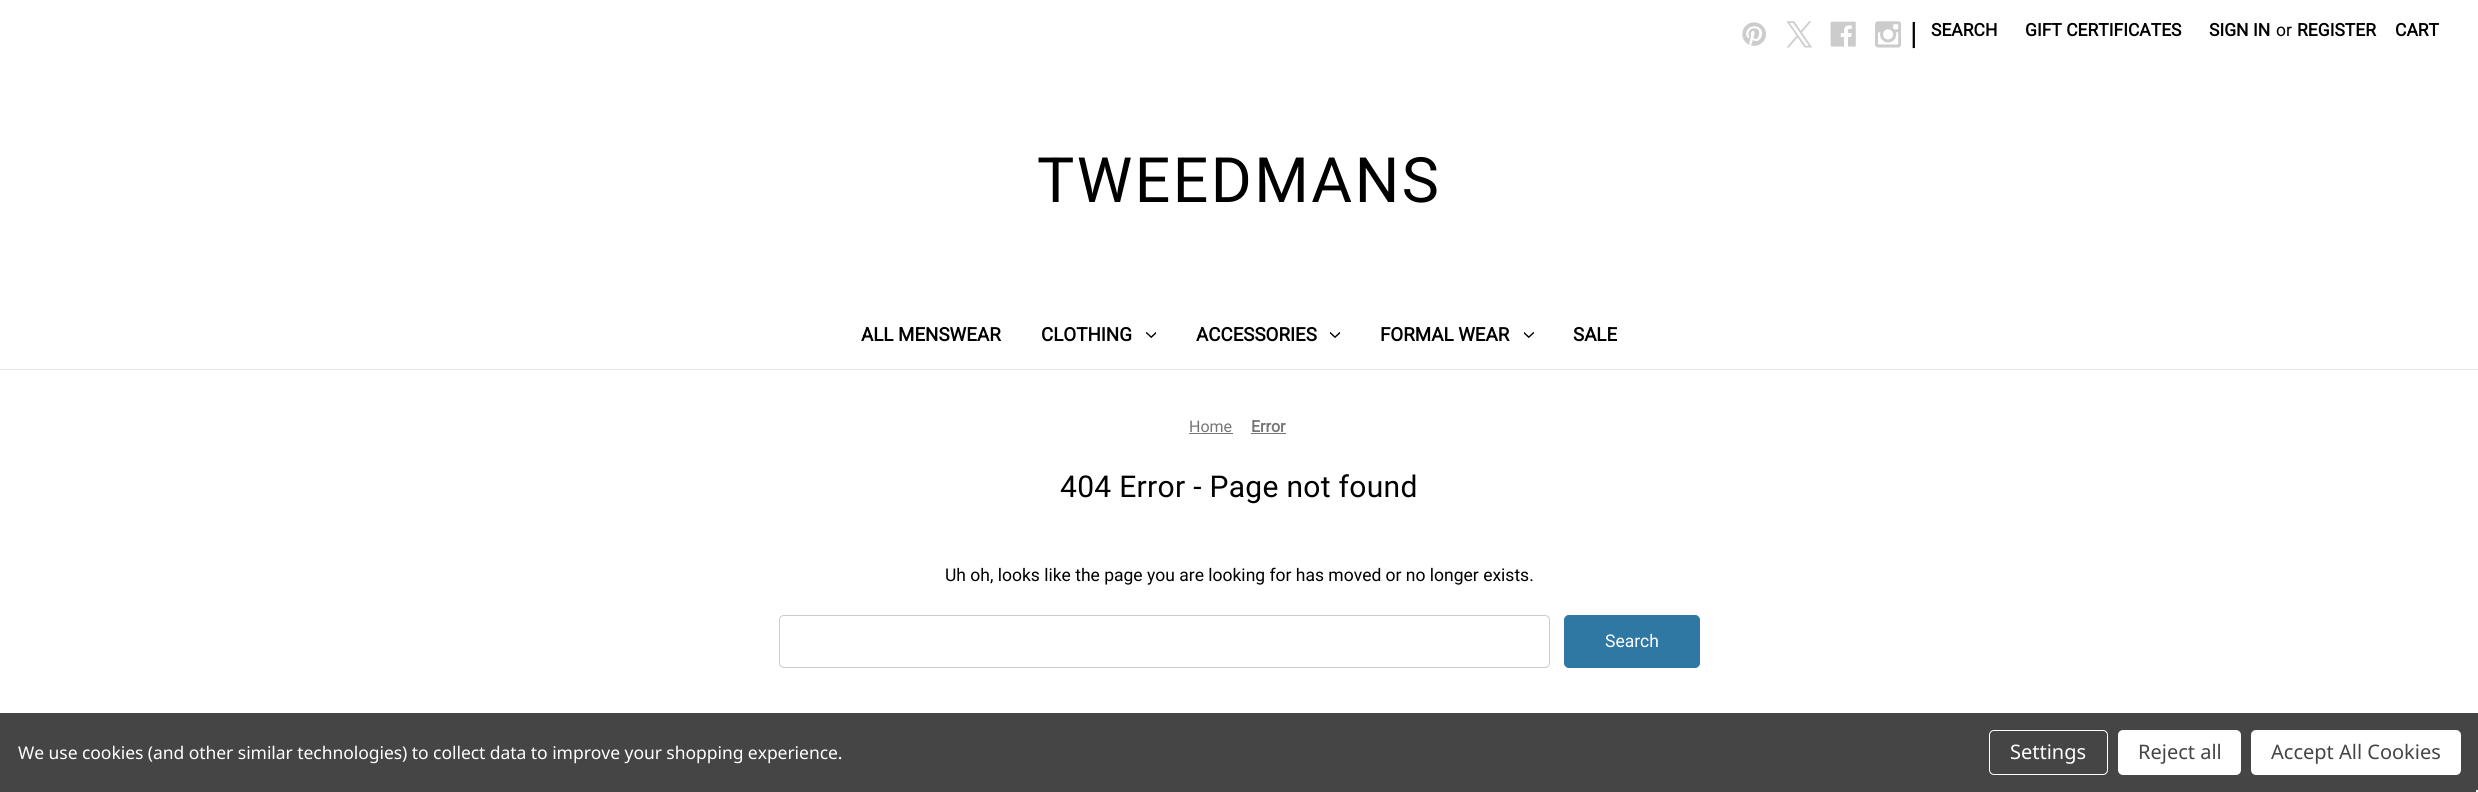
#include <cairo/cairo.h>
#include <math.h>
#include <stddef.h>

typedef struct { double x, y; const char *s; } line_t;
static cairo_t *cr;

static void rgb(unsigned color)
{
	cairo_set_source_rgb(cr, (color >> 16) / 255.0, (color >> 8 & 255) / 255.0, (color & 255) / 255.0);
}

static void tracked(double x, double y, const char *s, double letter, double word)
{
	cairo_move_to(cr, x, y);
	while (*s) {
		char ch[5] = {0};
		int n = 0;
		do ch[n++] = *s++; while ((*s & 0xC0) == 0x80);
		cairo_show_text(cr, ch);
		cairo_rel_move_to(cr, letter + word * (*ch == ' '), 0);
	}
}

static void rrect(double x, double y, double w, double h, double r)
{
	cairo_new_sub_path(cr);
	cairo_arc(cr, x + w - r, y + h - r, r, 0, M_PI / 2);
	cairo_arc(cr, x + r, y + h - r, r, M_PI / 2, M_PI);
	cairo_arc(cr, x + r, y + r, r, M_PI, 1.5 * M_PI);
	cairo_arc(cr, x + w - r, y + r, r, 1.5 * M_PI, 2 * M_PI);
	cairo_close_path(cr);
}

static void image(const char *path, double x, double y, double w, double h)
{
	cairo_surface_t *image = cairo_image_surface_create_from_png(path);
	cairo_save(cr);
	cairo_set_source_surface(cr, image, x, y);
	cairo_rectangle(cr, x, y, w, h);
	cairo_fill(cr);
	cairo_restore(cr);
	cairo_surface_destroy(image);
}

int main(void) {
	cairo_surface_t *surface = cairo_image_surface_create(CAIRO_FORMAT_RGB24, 2478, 792);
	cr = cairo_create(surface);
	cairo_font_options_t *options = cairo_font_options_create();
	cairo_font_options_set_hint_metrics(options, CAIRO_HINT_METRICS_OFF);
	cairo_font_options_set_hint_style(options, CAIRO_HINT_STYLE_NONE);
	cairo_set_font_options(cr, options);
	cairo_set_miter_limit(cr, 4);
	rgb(0xffffff);
	cairo_paint(cr);
	rgb(0xe5e5e5);
	cairo_rectangle(cr, 0, 369, 2478, 1);
	cairo_fill(cr);
	image("img/1.png", 1742, 22, 24, 24);
	image("img/2.png", 1786, 21, 26, 27);
	image("img/3.png", 1830, 21, 26, 26);
	image("img/4.png", 1875, 21, 26, 27);
	image("img/5.png", 1146, 332, 10, 6);
	image("img/6.png", 1330, 332, 10, 6);
	image("img/7.png", 1524, 332, 10, 6);
	rgb(0x757575);
	cairo_rectangle(cr, 1189, 433, 44, 1);
	cairo_fill(cr);
	cairo_rectangle(cr, 1251, 433, 35, 1);
	cairo_fill(cr);
	rrect(779.5, 615.5, 770, 52, 4.5);
	rgb(0xcccccc);
	cairo_set_line_width(cr, 1);
	cairo_stroke(cr);
	rgb(0x2e78a3);
	rrect(1564.5, 615.5, 135, 52, 4.5);
	cairo_fill_preserve(cr);
	cairo_stroke(cr);
	rgb(0x454545);
	cairo_rectangle(cr, 0, 713, 2478, 79);
	cairo_fill(cr);
	rrect(1989.5, 730.5, 118, 44, 4.5);
	rgb(0xffffff);
	cairo_stroke(cr);
	rrect(2118, 730, 123, 45, 5);
	cairo_fill(cr);
	rrect(2251, 730, 210, 45, 5);
	cairo_fill(cr);
	rgb(0xf5f5f5);
	cairo_rectangle(cr, 2476, 790, 2, 2);
	cairo_fill(cr);
	cairo_select_font_face(cr, "Roboto", CAIRO_FONT_SLANT_NORMAL, CAIRO_FONT_WEIGHT_NORMAL);
	cairo_set_font_size(cr, 31);
	rgb(0x000000);
	cairo_move_to(cr, 1910, 44);
	cairo_show_text(cr, "|");
	cairo_select_font_face(cr, "Roboto", CAIRO_FONT_SLANT_NORMAL, CAIRO_FONT_WEIGHT_BOLD);
	cairo_set_font_size(cr, 17.5);
	{
		static const line_t items[] = {
			{1931, 36, "SEARCH"},
			{2025, 36, "GIFT CERTIFICATES"},
			{2209, 36, "SIGN IN"},
		};
		for (size_t i = 0; i < sizeof items / sizeof *items; i++) {
			cairo_move_to(cr, items[i].x, items[i].y);
			cairo_show_text(cr, items[i].s);
		}
	}
	cairo_select_font_face(cr, "Roboto", CAIRO_FONT_SLANT_NORMAL, CAIRO_FONT_WEIGHT_NORMAL);
	cairo_move_to(cr, 2276, 36);
	cairo_show_text(cr, "or");
	cairo_select_font_face(cr, "Roboto", CAIRO_FONT_SLANT_NORMAL, CAIRO_FONT_WEIGHT_BOLD);
	cairo_move_to(cr, 2297, 36);
	cairo_show_text(cr, "REGISTER");
	cairo_move_to(cr, 2395, 36);
	cairo_show_text(cr, "CART");
	cairo_select_font_face(cr, "Roboto", CAIRO_FONT_SLANT_NORMAL, CAIRO_FONT_WEIGHT_NORMAL);
	cairo_set_font_size(cr, 62.5);
	tracked(1037, 202, "TWEEDMANS", 2.5, 0);
	cairo_select_font_face(cr, "Roboto", CAIRO_FONT_SLANT_NORMAL, CAIRO_FONT_WEIGHT_BOLD);
	cairo_set_font_size(cr, 18.75);
	{
		static const line_t items[] = {
			{861, 341, "ALL MENSWEAR"},
			{1041, 341, "CLOTHING"},
			{1196, 341, "ACCESSORIES"},
			{1380, 341, "FORMAL WEAR"},
			{1573, 341, "SALE"},
		};
		for (size_t i = 0; i < sizeof items / sizeof *items; i++) {
			cairo_move_to(cr, items[i].x, items[i].y);
			cairo_show_text(cr, items[i].s);
		}
	}
	cairo_select_font_face(cr, "Roboto", CAIRO_FONT_SLANT_NORMAL, CAIRO_FONT_WEIGHT_NORMAL);
	cairo_set_font_size(cr, 16);
	rgb(0x757575);
	cairo_move_to(cr, 1189, 432);
	cairo_show_text(cr, "Home");
	cairo_select_font_face(cr, "Roboto", CAIRO_FONT_SLANT_NORMAL, CAIRO_FONT_WEIGHT_BOLD);
	cairo_move_to(cr, 1251, 432);
	cairo_show_text(cr, "Error");
	cairo_select_font_face(cr, "Roboto", CAIRO_FONT_SLANT_NORMAL, CAIRO_FONT_WEIGHT_NORMAL);
	cairo_set_font_size(cr, 30);
	rgb(0x000000);
	tracked(1060, 497, "404 Error - Page not found", 0.3, 0);
	cairo_set_font_size(cr, 17.5);
	cairo_move_to(cr, 945, 581);
	cairo_show_text(cr, "Uh oh, looks like the page you are looking for has moved or no longer exists.");
	rgb(0xffffff);
	cairo_move_to(cr, 1605, 647);
	cairo_show_text(cr, "Search");
	cairo_select_font_face(cr, "Noto Sans", CAIRO_FONT_SLANT_NORMAL, CAIRO_FONT_WEIGHT_NORMAL);
	tracked(18, 759, "We use cookies (and other similar technologies) to collect data to improve your shopping experience.", -0.05, 0);
	cairo_set_font_size(cr, 20);
	cairo_move_to(cr, 2010, 759);
	cairo_show_text(cr, "Settings");
	rgb(0x454545);
	cairo_move_to(cr, 2138, 759);
	cairo_show_text(cr, "Reject all");
	cairo_move_to(cr, 2271, 759);
	cairo_show_text(cr, "Accept All Cookies");
	cairo_surface_write_to_png(surface, "page.png");
	cairo_font_options_destroy(options);
	cairo_destroy(cr);
	cairo_surface_destroy(surface);
	return 0;
}
